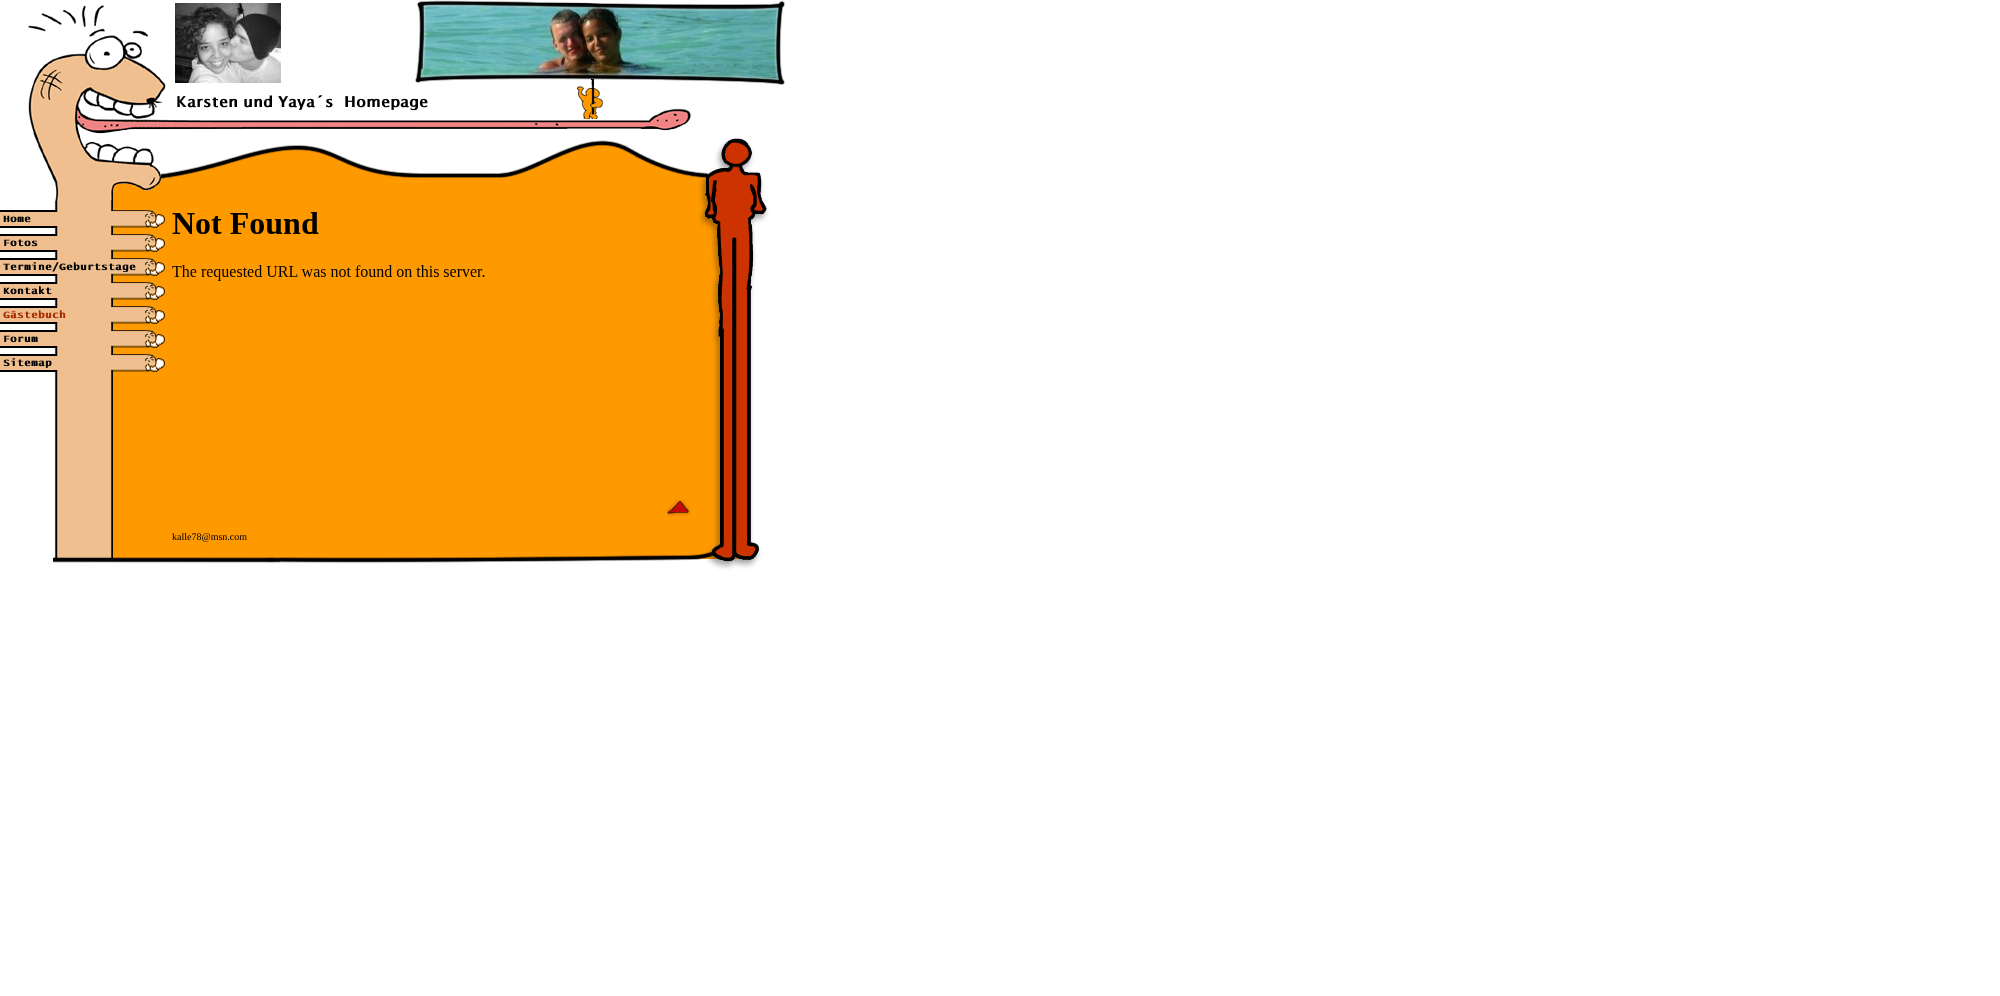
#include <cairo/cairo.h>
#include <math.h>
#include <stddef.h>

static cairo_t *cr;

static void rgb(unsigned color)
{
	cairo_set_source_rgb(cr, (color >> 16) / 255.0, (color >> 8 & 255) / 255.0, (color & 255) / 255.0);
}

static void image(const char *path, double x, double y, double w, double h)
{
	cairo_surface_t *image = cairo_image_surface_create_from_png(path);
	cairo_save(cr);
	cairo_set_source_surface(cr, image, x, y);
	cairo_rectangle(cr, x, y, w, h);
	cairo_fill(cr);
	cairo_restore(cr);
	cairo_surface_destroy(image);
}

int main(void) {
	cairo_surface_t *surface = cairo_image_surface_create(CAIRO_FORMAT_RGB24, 2000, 996);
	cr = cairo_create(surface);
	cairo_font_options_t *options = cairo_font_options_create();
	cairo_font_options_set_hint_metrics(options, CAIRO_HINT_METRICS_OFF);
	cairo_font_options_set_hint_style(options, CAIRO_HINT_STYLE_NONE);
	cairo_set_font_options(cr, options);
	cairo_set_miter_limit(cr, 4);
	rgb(0xffffff);
	cairo_paint(cr);
	image("img/1.png", 167, 120, 248, 70);
	image("img/2.png", 0, 5, 167, 185);
	image("img/3.png", 175, 3, 106, 80);
	image("img/4.png", 415, 0, 370, 85);
	image("img/5.png", 177, 95, 251, 16);
	image("img/6.png", 576, 85, 115, 35);
	image("img/7.png", 167, 120, 245, 58);
	image("img/8.png", 415, 120, 370, 70);
	image("img/9.png", 54, 190, 113, 300);
	image("img/10.png", 54, 190, 95, 13);
	image("img/11.png", 0, 210, 165, 18);
	image("img/12.png", 0, 234, 165, 18);
	image("img/13.png", 0, 258, 165, 18);
	image("img/14.png", 0, 282, 165, 18);
	image("img/15.png", 0, 306, 165, 18);
	image("img/16.png", 0, 330, 165, 18);
	image("img/17.png", 0, 354, 165, 18);
	rgb(0xff9900);
	cairo_rectangle(cr, 167, 190, 531, 352);
	cairo_fill(cr);
	image("img/18.png", 172, 212, 313, 69);
	image("img/19.png", 698, 344, 56, 198);
	image("img/20.png", 698, 190, 71, 154);
	image("img/21.png", 54, 490, 113, 52);
	image("img/22.png", 666, 499, 25, 18);
	image("img/23.png", 54, 542, 113, 15);
	image("img/24.png", 53, 557, 114, 14);
	image("img/25.png", 167, 542, 4, 21);
	image("img/26.png", 171, 542, 614, 29);
	cairo_select_font_face(cr, "Liberation Serif", CAIRO_FONT_SLANT_NORMAL, CAIRO_FONT_WEIGHT_NORMAL);
	cairo_set_font_size(cr, 10);
	rgb(0x000000);
	cairo_move_to(cr, 172, 540);
	cairo_show_text(cr, "kalle78@msn.com");
	cairo_surface_write_to_png(surface, "page.png");
	cairo_font_options_destroy(options);
	cairo_destroy(cr);
	cairo_surface_destroy(surface);
	return 0;
}
